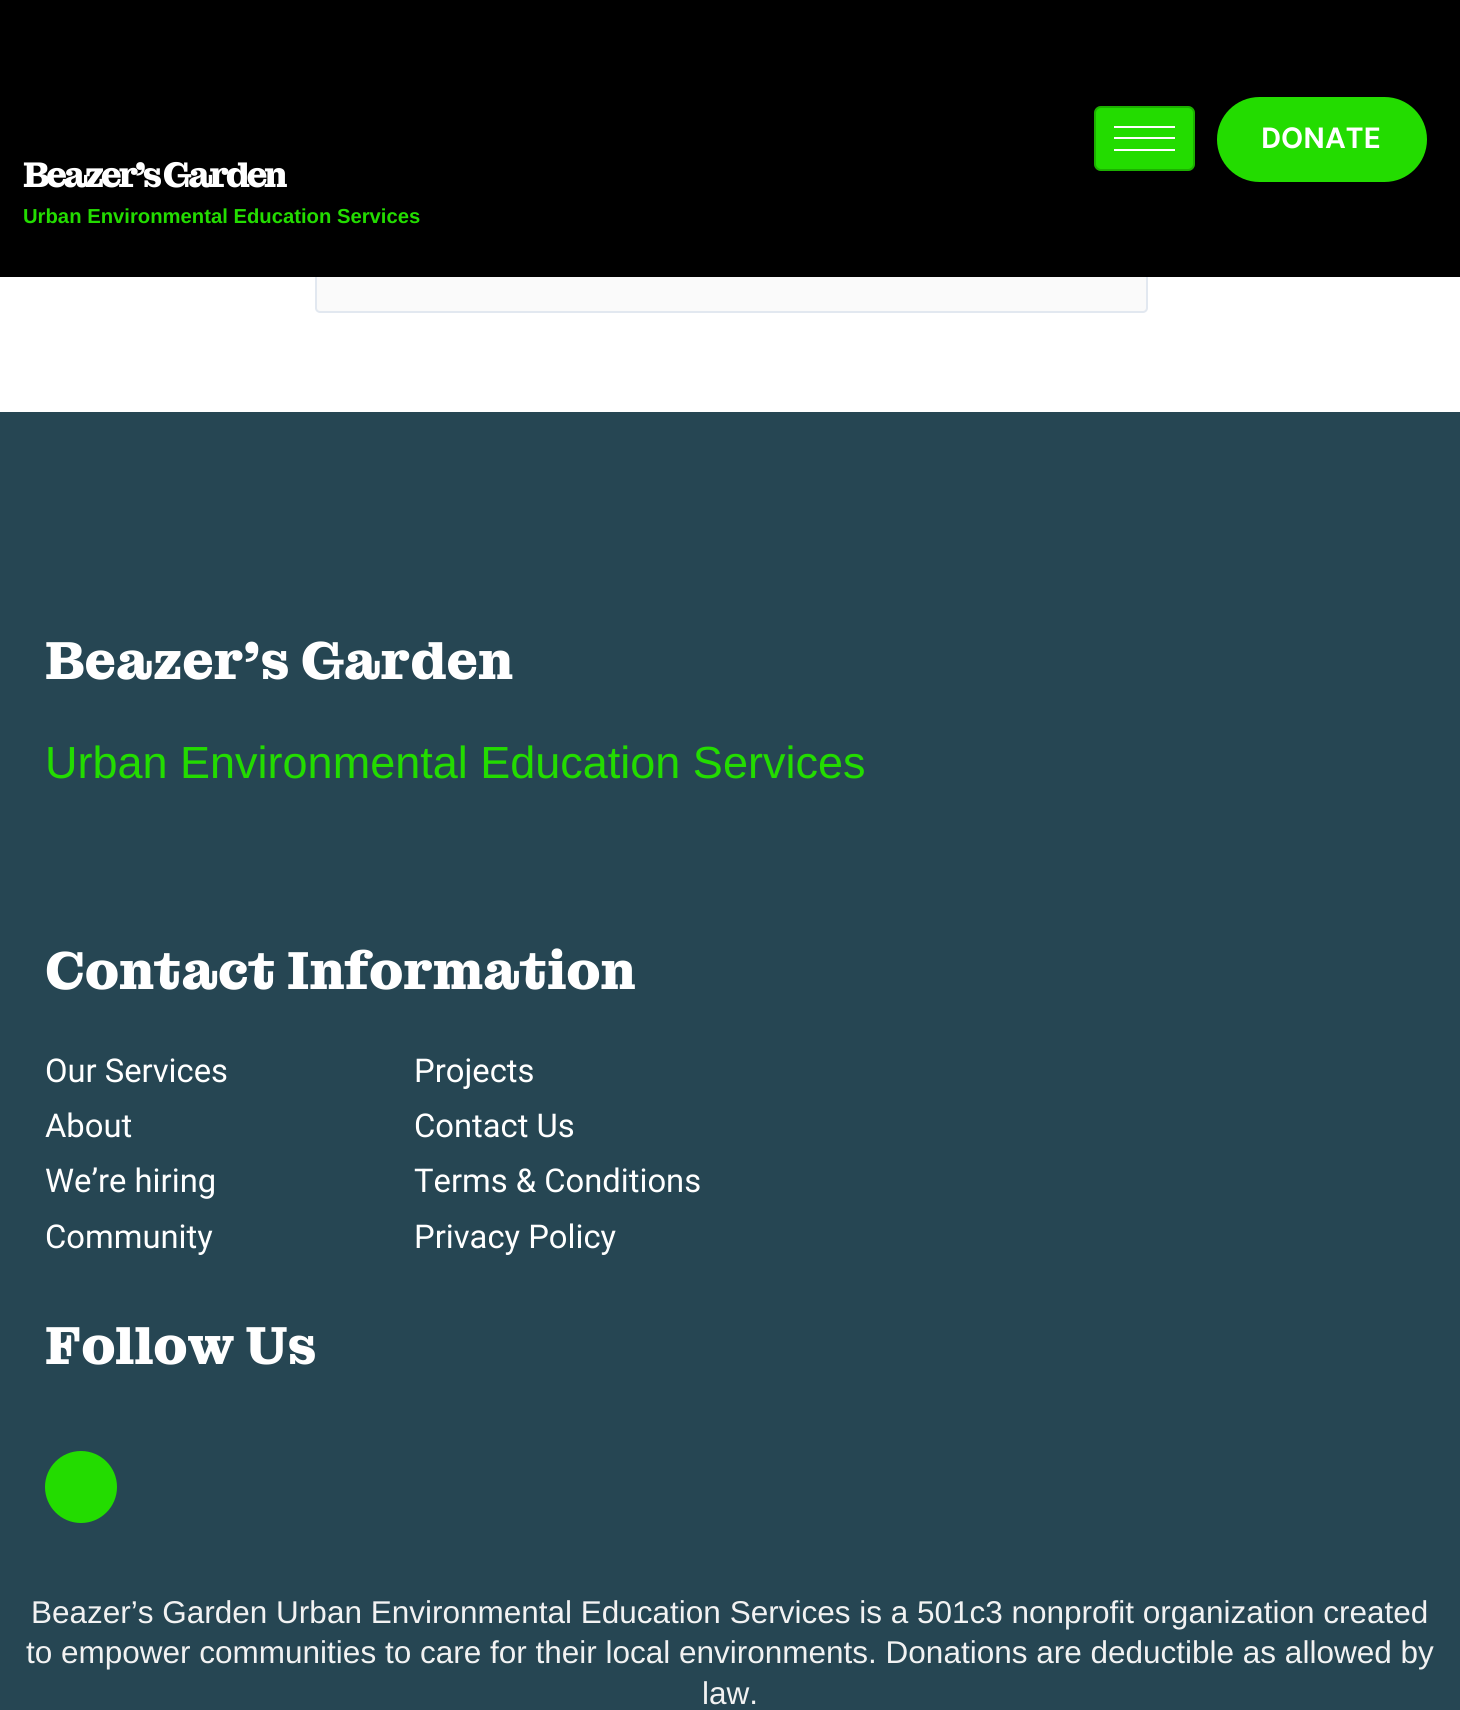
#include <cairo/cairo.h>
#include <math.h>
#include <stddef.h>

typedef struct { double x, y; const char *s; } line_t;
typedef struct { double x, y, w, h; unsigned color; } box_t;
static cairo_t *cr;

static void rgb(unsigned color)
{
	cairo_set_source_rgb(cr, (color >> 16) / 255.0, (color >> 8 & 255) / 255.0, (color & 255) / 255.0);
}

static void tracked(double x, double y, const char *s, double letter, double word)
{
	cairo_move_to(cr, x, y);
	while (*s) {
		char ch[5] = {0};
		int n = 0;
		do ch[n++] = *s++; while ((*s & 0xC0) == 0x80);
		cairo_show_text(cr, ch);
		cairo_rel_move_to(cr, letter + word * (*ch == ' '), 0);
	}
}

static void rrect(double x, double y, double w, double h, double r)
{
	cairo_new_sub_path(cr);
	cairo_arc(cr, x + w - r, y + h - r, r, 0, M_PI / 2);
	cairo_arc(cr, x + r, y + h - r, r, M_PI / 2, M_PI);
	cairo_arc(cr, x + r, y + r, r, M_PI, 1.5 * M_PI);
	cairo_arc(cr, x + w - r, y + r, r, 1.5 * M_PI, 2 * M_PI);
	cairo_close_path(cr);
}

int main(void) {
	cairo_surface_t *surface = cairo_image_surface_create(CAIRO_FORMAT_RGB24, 1460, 1710);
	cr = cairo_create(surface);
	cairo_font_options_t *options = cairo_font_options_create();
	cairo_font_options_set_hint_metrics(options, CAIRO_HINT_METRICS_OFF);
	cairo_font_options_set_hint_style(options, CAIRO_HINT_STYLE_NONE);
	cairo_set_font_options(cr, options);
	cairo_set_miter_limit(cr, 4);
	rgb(0xffffff);
	cairo_paint(cr);
	rgb(0xfafafa);
	rrect(316, 201, 831, 111, 4);
	cairo_fill_preserve(cr);
	rgb(0xe2e8f0);
	cairo_stroke(cr);
	rgb(0x000000);
	cairo_rectangle(cr, 0, 0, 1460, 277);
	cairo_fill(cr);
	rgb(0x23dc00);
	rrect(1094, 106, 101, 65, 7);
	cairo_fill(cr);
	rrect(1095, 107, 99, 63, 6);
	cairo_set_source_rgba(cr, 0, 0, 0, 0.2);
	cairo_stroke(cr);
	{
		static const box_t items[] = {
			{1114, 126, 61, 2, 0xffffff},
			{1114, 137, 61, 2, 0xffffff},
			{1114, 149, 61, 2, 0xffffff},
		};
		for (size_t i = 0; i < sizeof items / sizeof *items; i++) {
			rgb(items[i].color);
			cairo_rectangle(cr, items[i].x, items[i].y, items[i].w, items[i].h);
			cairo_fill(cr);
		}
	}
	rgb(0x23dc00);
	rrect(1217, 97, 210, 85, 42.5);
	cairo_fill(cr);
	rgb(0x264653);
	cairo_rectangle(cr, 0, 412, 1460, 1298);
	cairo_fill(cr);
	rgb(0x23dc00);
	cairo_arc(cr, 81, 1487, 36, 0, 2 * M_PI);
	cairo_fill(cr);
	cairo_select_font_face(cr, "DM Sans", CAIRO_FONT_SLANT_NORMAL, CAIRO_FONT_WEIGHT_BOLD);
	cairo_set_font_size(cr, 29.25);
	rgb(0xffffff);
	cairo_move_to(cr, 1261, 148);
	cairo_show_text(cr, "DONATE");
	cairo_select_font_face(cr, "Montagu Slab", CAIRO_FONT_SLANT_NORMAL, CAIRO_FONT_WEIGHT_BOLD);
	cairo_set_font_size(cr, 36);
	tracked(23, 187, "Beazer's Garden", -3.4, 0);
	cairo_select_font_face(cr, "Liberation Sans", CAIRO_FONT_SLANT_NORMAL, CAIRO_FONT_WEIGHT_BOLD);
	cairo_set_font_size(cr, 20.25);
	rgb(0x23dc00);
	cairo_move_to(cr, 23, 223);
	cairo_show_text(cr, "Urban Environmental Education Services");
	cairo_select_font_face(cr, "Montagu Slab", CAIRO_FONT_SLANT_NORMAL, CAIRO_FONT_WEIGHT_BOLD);
	cairo_set_font_size(cr, 54);
	rgb(0xffffff);
	cairo_move_to(cr, 45, 679);
	cairo_show_text(cr, "Beazer's Garden");
	cairo_select_font_face(cr, "Liberation Sans", CAIRO_FONT_SLANT_NORMAL, CAIRO_FONT_WEIGHT_NORMAL);
	cairo_set_font_size(cr, 45);
	rgb(0x23dc00);
	cairo_move_to(cr, 45, 778);
	cairo_show_text(cr, "Urban Environmental Education Services");
	cairo_select_font_face(cr, "Montagu Slab", CAIRO_FONT_SLANT_NORMAL, CAIRO_FONT_WEIGHT_BOLD);
	cairo_set_font_size(cr, 54);
	rgb(0xffffff);
	cairo_move_to(cr, 45, 989);
	cairo_show_text(cr, "Contact Information");
	cairo_select_font_face(cr, "Roboto", CAIRO_FONT_SLANT_NORMAL, CAIRO_FONT_WEIGHT_NORMAL);
	cairo_set_font_size(cr, 32.75);
	{
		static const line_t items[] = {
			{45, 1082, "Our Services"},
			{45, 1137, "About"},
			{45, 1192, "We’re hiring"},
			{45, 1248, "Community"},
			{414, 1082, "Projects"},
			{414, 1137, "Contact Us"},
			{414, 1192, "Terms & Conditions"},
			{414, 1248, "Privacy Policy"},
		};
		for (size_t i = 0; i < sizeof items / sizeof *items; i++) {
			cairo_move_to(cr, items[i].x, items[i].y);
			cairo_show_text(cr, items[i].s);
		}
	}
	cairo_select_font_face(cr, "Montagu Slab", CAIRO_FONT_SLANT_NORMAL, CAIRO_FONT_WEIGHT_BOLD);
	cairo_set_font_size(cr, 54);
	cairo_move_to(cr, 45, 1364);
	cairo_show_text(cr, "Follow Us");
	cairo_select_font_face(cr, "Liberation Sans", CAIRO_FONT_SLANT_NORMAL, CAIRO_FONT_WEIGHT_NORMAL);
	cairo_set_font_size(cr, 31.5);
	rgb(0xf2f2f2);
	{
		static const line_t items[] = {
			{31, 1623, "Beazer’s Garden Urban Environmental Education Services is a 501c3 nonprofit organization created"},
			{26, 1663, "to empower communities to care for their local environments. Donations are deductible as allowed by"},
			{702, 1704, "law."},
		};
		for (size_t i = 0; i < sizeof items / sizeof *items; i++) {
			cairo_move_to(cr, items[i].x, items[i].y);
			cairo_show_text(cr, items[i].s);
		}
	}
	cairo_surface_write_to_png(surface, "page.png");
	cairo_font_options_destroy(options);
	cairo_destroy(cr);
	cairo_surface_destroy(surface);
	return 0;
}
